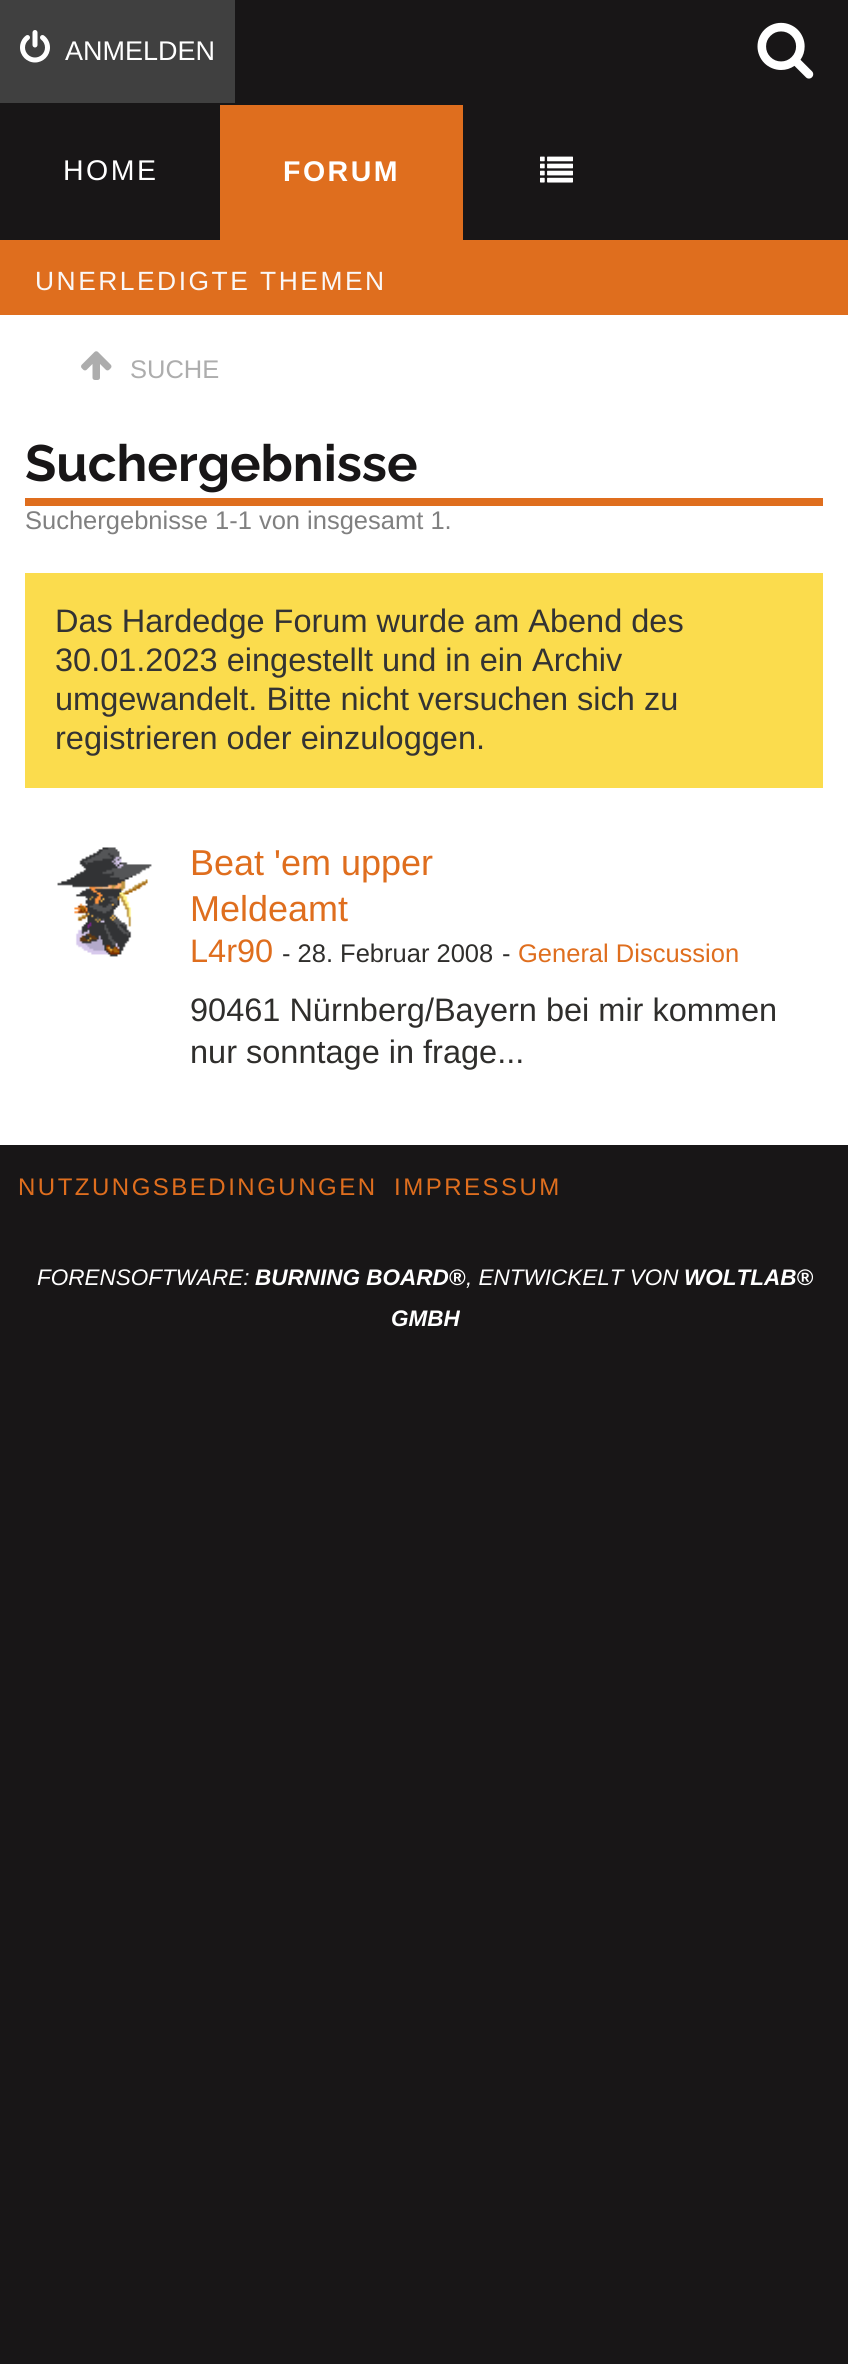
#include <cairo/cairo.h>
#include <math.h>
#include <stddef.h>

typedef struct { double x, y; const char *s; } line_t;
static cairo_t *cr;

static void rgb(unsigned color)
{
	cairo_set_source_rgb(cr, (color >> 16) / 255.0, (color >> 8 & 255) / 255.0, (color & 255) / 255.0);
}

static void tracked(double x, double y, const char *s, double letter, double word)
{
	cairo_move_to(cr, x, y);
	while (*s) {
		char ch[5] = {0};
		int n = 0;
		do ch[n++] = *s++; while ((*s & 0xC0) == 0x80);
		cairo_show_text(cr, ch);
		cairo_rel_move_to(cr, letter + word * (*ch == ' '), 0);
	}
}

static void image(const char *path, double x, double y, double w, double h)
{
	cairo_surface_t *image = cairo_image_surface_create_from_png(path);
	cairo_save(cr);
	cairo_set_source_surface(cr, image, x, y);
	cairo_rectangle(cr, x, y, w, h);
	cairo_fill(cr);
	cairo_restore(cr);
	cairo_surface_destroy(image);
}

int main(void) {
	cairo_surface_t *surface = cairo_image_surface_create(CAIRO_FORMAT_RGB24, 848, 2364);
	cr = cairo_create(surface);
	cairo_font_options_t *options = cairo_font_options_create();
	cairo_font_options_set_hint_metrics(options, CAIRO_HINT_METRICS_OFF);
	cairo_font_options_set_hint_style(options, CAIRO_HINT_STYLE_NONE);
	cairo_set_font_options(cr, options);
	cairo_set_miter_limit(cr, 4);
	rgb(0x181617);
	cairo_paint(cr);
	rgb(0x404040);
	cairo_rectangle(cr, 0, 0, 235, 103);
	cairo_fill(cr);
	image("img/1.png", 20, 30, 30, 33);
	image("img/2.png", 757, 22, 57, 57);
	rgb(0xdf6e1e);
	cairo_rectangle(cr, 220, 105, 243, 135);
	cairo_fill(cr);
	image("img/3.png", 540, 156, 33, 27);
	cairo_rectangle(cr, 0, 240, 848, 75);
	cairo_fill(cr);
	rgb(0xffffff);
	cairo_rectangle(cr, 0, 315, 848, 830);
	cairo_fill(cr);
	image("img/4.png", 81, 351, 31, 29);
	rgb(0xdf6e1e);
	cairo_rectangle(cr, 25, 498, 798, 8);
	cairo_fill(cr);
	rgb(0xfbdc4d);
	cairo_rectangle(cr, 25, 573, 798, 215);
	cairo_fill(cr);
	image("img/5.png", 57, 847, 95, 110);
	cairo_select_font_face(cr, "Liberation Sans", CAIRO_FONT_SLANT_NORMAL, CAIRO_FONT_WEIGHT_NORMAL);
	cairo_set_font_size(cr, 27);
	rgb(0xffffff);
	cairo_move_to(cr, 65, 60);
	cairo_show_text(cr, "ANMELDEN");
	cairo_set_font_size(cr, 28.5);
	tracked(63, 180, "HOME", 2.5, 0);
	cairo_select_font_face(cr, "Liberation Sans", CAIRO_FONT_SLANT_NORMAL, CAIRO_FONT_WEIGHT_BOLD);
	tracked(283, 181, "FORUM", 2.5, 0);
	cairo_select_font_face(cr, "Liberation Sans", CAIRO_FONT_SLANT_NORMAL, CAIRO_FONT_WEIGHT_NORMAL);
	cairo_set_font_size(cr, 26.4);
	rgb(0xfaf8f8);
	tracked(35, 290, "UNERLEDIGTE THEMEN", 2.5, 0);
	cairo_set_font_size(cr, 25.5);
	rgb(0xadadad);
	cairo_move_to(cr, 130, 378);
	cairo_show_text(cr, "SUCHE");
	cairo_select_font_face(cr, "Raleway", CAIRO_FONT_SLANT_NORMAL, CAIRO_FONT_WEIGHT_BOLD);
	cairo_set_font_size(cr, 51);
	rgb(0x181617);
	cairo_move_to(cr, 25, 481);
	cairo_show_text(cr, "Suchergebnisse");
	cairo_select_font_face(cr, "Liberation Sans", CAIRO_FONT_SLANT_NORMAL, CAIRO_FONT_WEIGHT_NORMAL);
	cairo_set_font_size(cr, 25.5);
	rgb(0x808080);
	cairo_move_to(cr, 25, 529);
	cairo_show_text(cr, "Suchergebnisse 1-1 von insgesamt 1.");
	cairo_set_font_size(cr, 32.5);
	rgb(0x333333);
	{
		static const line_t items[] = {
			{55, 632, "Das Hardedge Forum wurde am Abend des"},
			{55, 671, "30.01.2023 eingestellt und in ein Archiv"},
			{55, 710, "umgewandelt. Bitte nicht versuchen sich zu"},
			{55, 749, "registrieren oder einzuloggen."},
		};
		for (size_t i = 0; i < sizeof items / sizeof *items; i++) {
			cairo_move_to(cr, items[i].x, items[i].y);
			cairo_show_text(cr, items[i].s);
		}
	}
	cairo_set_font_size(cr, 36);
	rgb(0xdf6e1e);
	cairo_move_to(cr, 190, 875);
	cairo_show_text(cr, "Beat 'em upper");
	cairo_move_to(cr, 190, 921);
	cairo_show_text(cr, "Meldeamt");
	cairo_set_font_size(cr, 32.5);
	cairo_move_to(cr, 190, 962);
	cairo_show_text(cr, "L4r90");
	cairo_set_font_size(cr, 25.5);
	rgb(0x2f2e2c);
	cairo_move_to(cr, 282, 962);
	cairo_show_text(cr, "- 28. Februar 2008");
	cairo_move_to(cr, 502, 962);
	cairo_show_text(cr, "-");
	rgb(0xdf6e1e);
	cairo_move_to(cr, 518, 962);
	cairo_show_text(cr, "General Discussion");
	cairo_set_font_size(cr, 32.5);
	rgb(0x2f2e2c);
	cairo_move_to(cr, 190, 1021);
	cairo_show_text(cr, "90461 Nürnberg/Bayern bei mir kommen");
	cairo_move_to(cr, 190, 1063);
	cairo_show_text(cr, "nur sonntage in frage...");
	cairo_set_font_size(cr, 24);
	rgb(0xdf6e1e);
	tracked(18, 1195, "NUTZUNGSBEDINGUNGEN", 2.5, 0);
	tracked(394, 1195, "IMPRESSUM", 2.5, 0);
	cairo_select_font_face(cr, "Liberation Sans", CAIRO_FONT_SLANT_ITALIC, CAIRO_FONT_WEIGHT_NORMAL);
	cairo_set_font_size(cr, 22.5);
	rgb(0xffffff);
	cairo_move_to(cr, 37, 1285);
	cairo_show_text(cr, "FORENSOFTWARE:");
	cairo_select_font_face(cr, "Liberation Sans", CAIRO_FONT_SLANT_ITALIC, CAIRO_FONT_WEIGHT_BOLD);
	cairo_move_to(cr, 255, 1285);
	cairo_show_text(cr, "BURNING BOARD®");
	cairo_select_font_face(cr, "Liberation Sans", CAIRO_FONT_SLANT_ITALIC, CAIRO_FONT_WEIGHT_NORMAL);
	cairo_move_to(cr, 466, 1285);
	cairo_show_text(cr, ", ENTWICKELT VON");
	cairo_select_font_face(cr, "Liberation Sans", CAIRO_FONT_SLANT_ITALIC, CAIRO_FONT_WEIGHT_BOLD);
	cairo_move_to(cr, 684, 1285);
	cairo_show_text(cr, "WOLTLAB®");
	cairo_move_to(cr, 391, 1326);
	cairo_show_text(cr, "GMBH");
	cairo_surface_write_to_png(surface, "page.png");
	cairo_font_options_destroy(options);
	cairo_destroy(cr);
	cairo_surface_destroy(surface);
	return 0;
}
